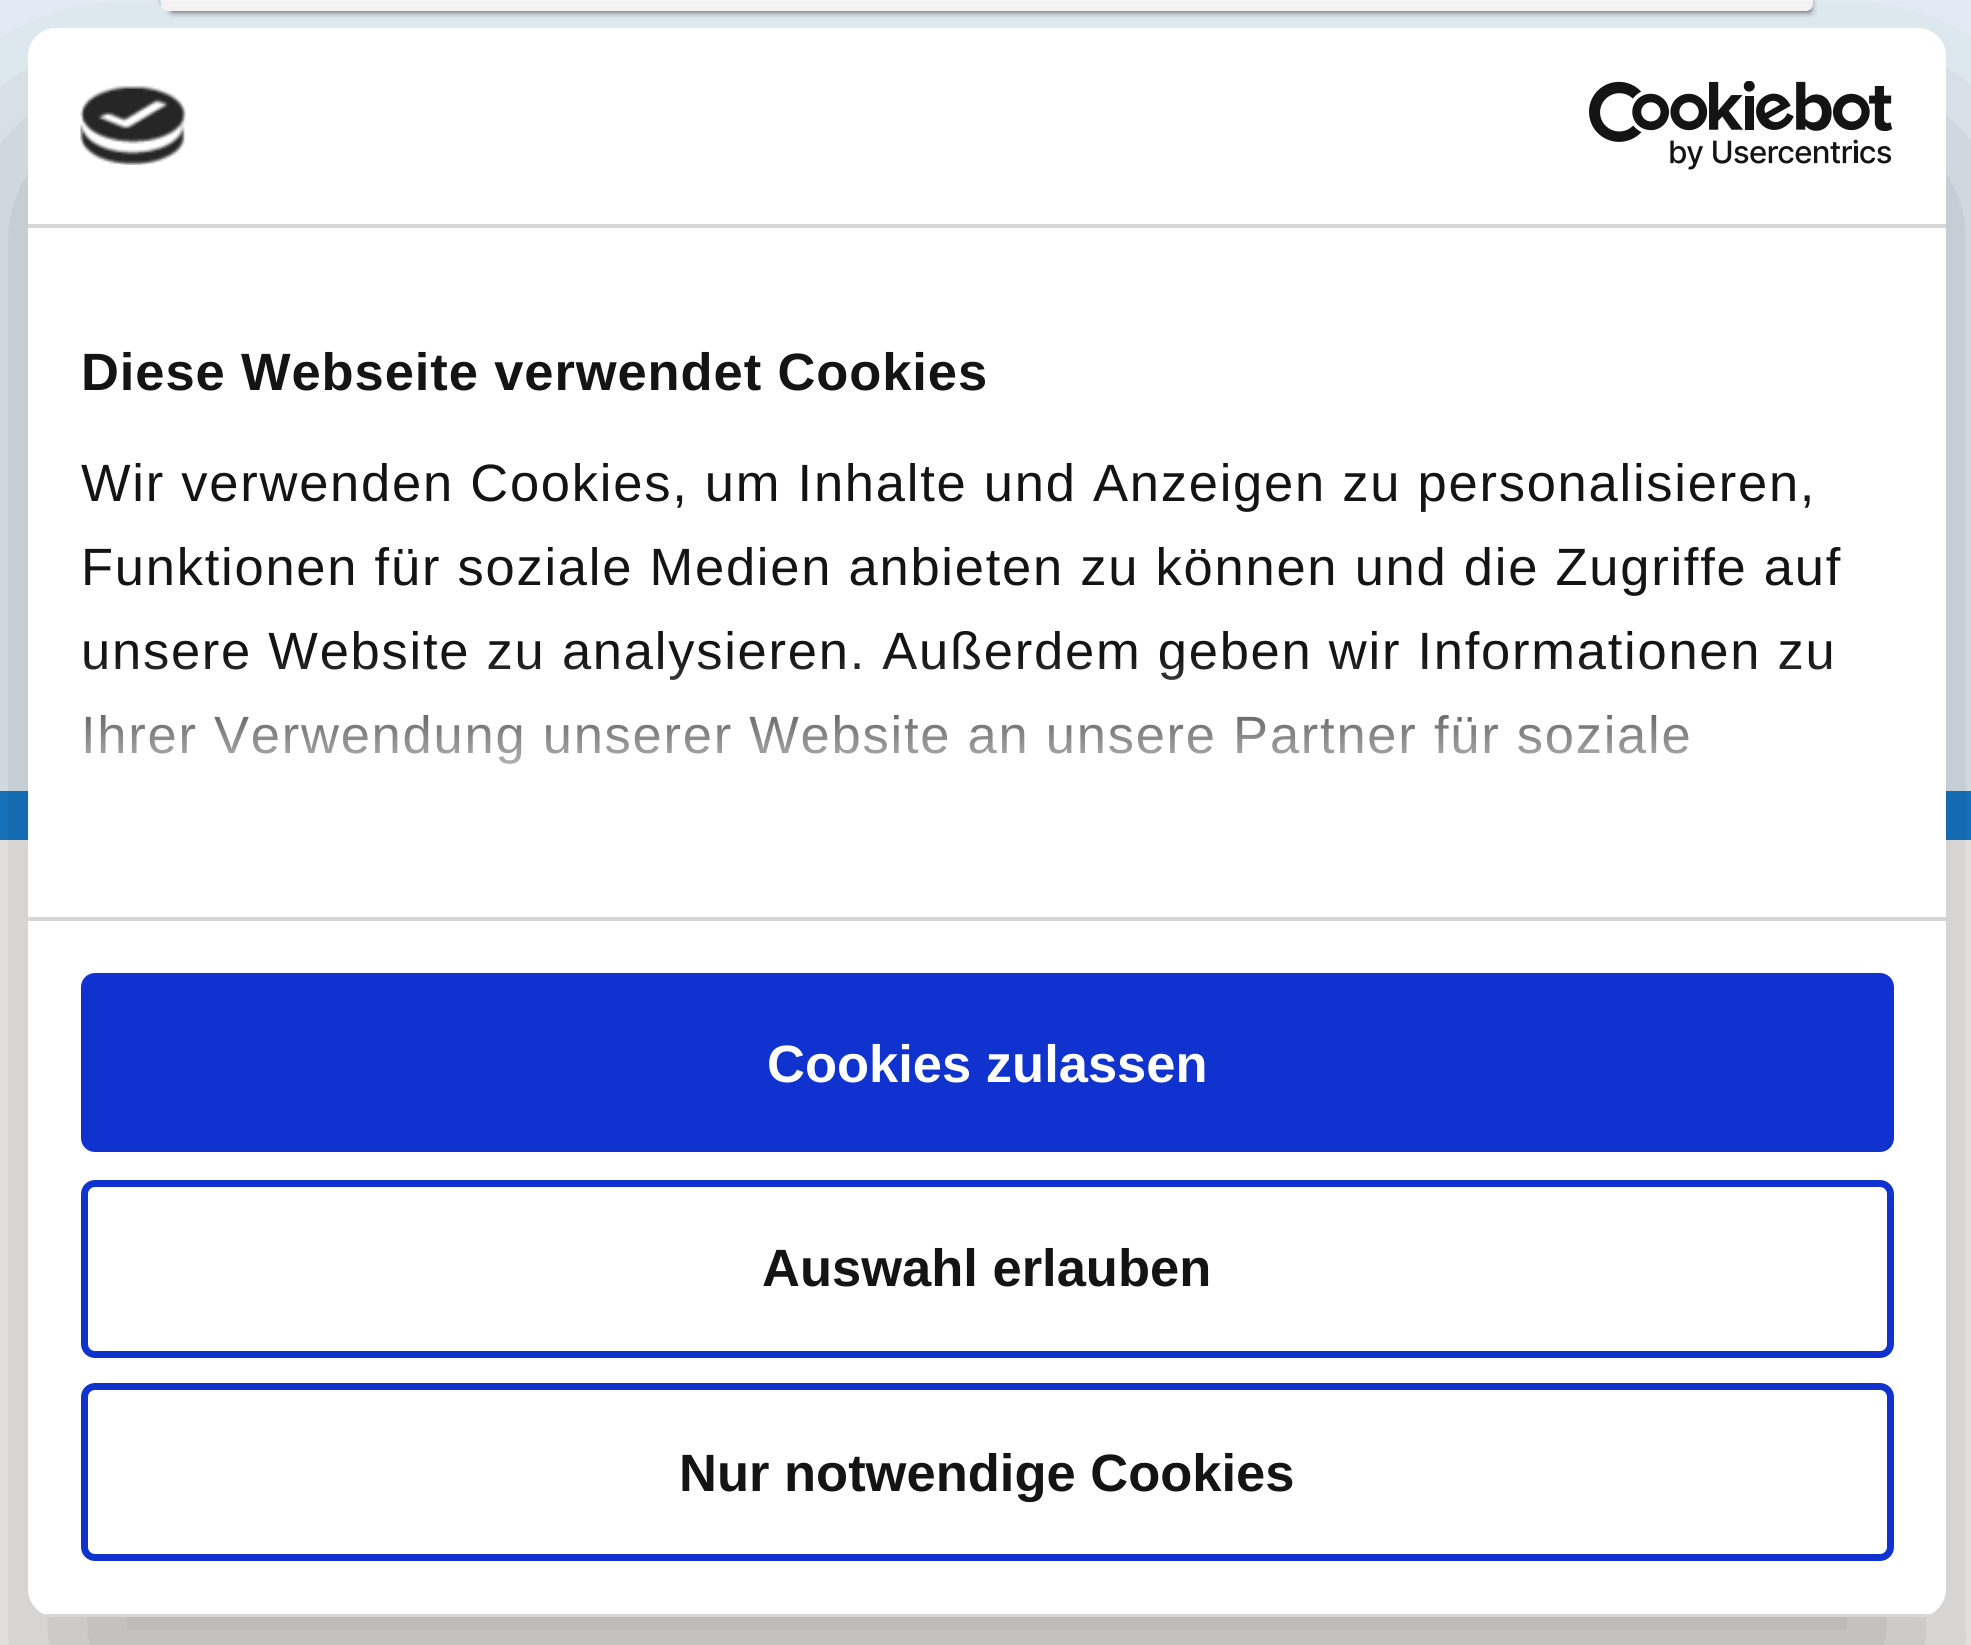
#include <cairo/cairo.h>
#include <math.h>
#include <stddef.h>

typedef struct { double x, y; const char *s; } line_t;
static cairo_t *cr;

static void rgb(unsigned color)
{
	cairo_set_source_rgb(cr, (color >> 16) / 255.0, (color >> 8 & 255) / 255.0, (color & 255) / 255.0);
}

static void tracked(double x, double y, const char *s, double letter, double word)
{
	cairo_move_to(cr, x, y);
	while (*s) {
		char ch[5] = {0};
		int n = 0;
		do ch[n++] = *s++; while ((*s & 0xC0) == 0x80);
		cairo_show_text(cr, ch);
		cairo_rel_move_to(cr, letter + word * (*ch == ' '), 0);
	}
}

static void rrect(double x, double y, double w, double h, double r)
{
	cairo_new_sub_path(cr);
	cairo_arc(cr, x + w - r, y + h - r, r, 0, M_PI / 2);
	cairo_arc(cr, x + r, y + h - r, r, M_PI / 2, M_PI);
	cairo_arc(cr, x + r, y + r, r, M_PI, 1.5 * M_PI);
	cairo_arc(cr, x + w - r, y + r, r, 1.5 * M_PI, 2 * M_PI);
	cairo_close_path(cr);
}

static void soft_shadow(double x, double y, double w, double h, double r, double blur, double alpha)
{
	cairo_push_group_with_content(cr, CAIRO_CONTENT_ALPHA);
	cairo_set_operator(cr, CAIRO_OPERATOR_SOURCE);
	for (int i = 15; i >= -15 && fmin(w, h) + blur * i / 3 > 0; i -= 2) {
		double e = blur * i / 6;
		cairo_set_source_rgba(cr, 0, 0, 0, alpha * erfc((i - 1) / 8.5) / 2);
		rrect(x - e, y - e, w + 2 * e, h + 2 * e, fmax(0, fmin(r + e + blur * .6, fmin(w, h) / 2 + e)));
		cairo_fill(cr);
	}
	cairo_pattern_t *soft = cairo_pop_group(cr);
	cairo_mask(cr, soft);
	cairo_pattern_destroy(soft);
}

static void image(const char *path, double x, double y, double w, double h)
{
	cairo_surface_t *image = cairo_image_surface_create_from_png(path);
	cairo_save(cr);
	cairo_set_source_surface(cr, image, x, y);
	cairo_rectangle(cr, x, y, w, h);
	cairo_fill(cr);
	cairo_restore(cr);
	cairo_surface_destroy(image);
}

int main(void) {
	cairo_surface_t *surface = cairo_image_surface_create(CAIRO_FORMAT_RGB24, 1971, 1645);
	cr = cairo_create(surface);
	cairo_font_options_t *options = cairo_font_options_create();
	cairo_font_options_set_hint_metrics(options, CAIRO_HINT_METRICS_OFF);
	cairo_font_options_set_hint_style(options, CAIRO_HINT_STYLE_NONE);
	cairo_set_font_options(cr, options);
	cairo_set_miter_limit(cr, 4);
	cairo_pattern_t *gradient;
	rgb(0x187ed0);
	cairo_paint(cr);
	rgb(0xe8f2fa);
	cairo_rectangle(cr, 0, 0, 1971, 791);
	cairo_fill(cr);
	rgb(0xd5dfe6);
	cairo_new_path(cr);
	cairo_move_to(cr, 165, -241);
	cairo_curve_to(cr, 161, -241, 158, -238, 158, -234);
	cairo_line_to(cr, 158, 0);
	cairo_curve_to(cr, 158, 3, 159, 5, 161, 6);
	cairo_line_to(cr, 161, 4);
	cairo_line_to(cr, 161, -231);
	cairo_curve_to(cr, 161, -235, 164, -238, 168, -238);
	cairo_line_to(cr, 1806, -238);
	cairo_line_to(cr, 1809, -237);
	cairo_curve_to(cr, 1808, -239, 1806, -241, 1803, -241);
	cairo_close_path(cr);
	cairo_fill(cr);
	rgb(0x000000);
	soft_shadow(172, -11, 1638, 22, 0, 3.5, 0.8);
	rgb(0xffffff);
	rrect(161, -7, 1652, 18, 7);
	cairo_fill(cr);
	rgb(0xfdfaf9);
	cairo_rectangle(cr, 0, 840, 1971, 805);
	cairo_fill(cr);
	rgb(0x000000);
	soft_shadow(28, 140, 1918, 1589, 28, 119, 0.3);
	rgb(0xffffff);
	rrect(28, 28, 1918, 1589, 28);
	cairo_fill(cr);
	rgb(0xd6d6d6);
	cairo_rectangle(cr, 28, 224, 1918, 4);
	cairo_fill(cr);
	image("img/1.png", 80, 85, 106, 80);
	image("img/2.png", 1589, 81, 304, 89);
	cairo_rectangle(cr, 28, 917, 1918, 4);
	cairo_fill(cr);
	cairo_save(cr);
	rrect(28, 28, 1918, 1589, 28);
	cairo_clip(cr);
	cairo_rectangle(cr, 43, 1614, 1888, 3);
	cairo_fill(cr);
	cairo_restore(cr);
	rgb(0x1032cf);
	rrect(84.5, 976.5, 1806, 172, 10.5);
	cairo_fill_preserve(cr);
	cairo_set_line_width(cr, 7);
	cairo_stroke(cr);
	rrect(84.5, 1183.5, 1806, 171, 10.5);
	cairo_stroke(cr);
	rrect(84.5, 1386.5, 1806, 171, 10.5);
	cairo_stroke(cr);
	cairo_select_font_face(cr, "Liberation Sans", CAIRO_FONT_SLANT_NORMAL, CAIRO_FONT_WEIGHT_BOLD);
	cairo_set_font_size(cr, 52.5);
	rgb(0x141414);
	tracked(81, 390, "Diese Webseite verwendet Cookies", 0.9, 0);
	cairo_select_font_face(cr, "Liberation Sans", CAIRO_FONT_SLANT_NORMAL, CAIRO_FONT_WEIGHT_NORMAL);
	{
		static const line_t items[] = {
			{81, 501, "Wir verwenden Cookies, um Inhalte und Anzeigen zu personalisieren,"},
			{81, 585, "Funktionen für soziale Medien anbieten zu können und die Zugriffe auf"},
			{81, 669, "unsere Website zu analysieren. Außerdem geben wir Informationen zu"},
			{81, 753, "Ihrer Verwendung unserer Website an unsere Partner für soziale"},
		};
		for (size_t i = 0; i < sizeof items / sizeof *items; i++) {
			tracked(items[i].x, items[i].y, items[i].s, 1.75, 0);
		}
	}
	gradient = cairo_pattern_create_linear(964, 917, 964, 655);
	cairo_pattern_add_color_stop_rgba(gradient, 0, 1, 1, 1, 1);
	cairo_pattern_add_color_stop_rgba(gradient, 0.5, 1, 1, 1, 0.8);
	cairo_pattern_add_color_stop_rgba(gradient, 1, 1, 1, 1, 0);
	cairo_set_source(cr, gradient);
	cairo_pattern_destroy(gradient);
	cairo_rectangle(cr, 84, 659, 1747, 105);
	cairo_fill(cr);
	cairo_select_font_face(cr, "Liberation Sans", CAIRO_FONT_SLANT_NORMAL, CAIRO_FONT_WEIGHT_BOLD);
	rgb(0xffffff);
	cairo_move_to(cr, 767, 1082);
	cairo_show_text(cr, "Cookies zulassen");
	rgb(0x141414);
	cairo_move_to(cr, 762, 1286);
	cairo_show_text(cr, "Auswahl erlauben");
	cairo_move_to(cr, 679, 1491);
	cairo_show_text(cr, "Nur notwendige Cookies");
	cairo_surface_write_to_png(surface, "page.png");
	cairo_font_options_destroy(options);
	cairo_destroy(cr);
	cairo_surface_destroy(surface);
	return 0;
}
